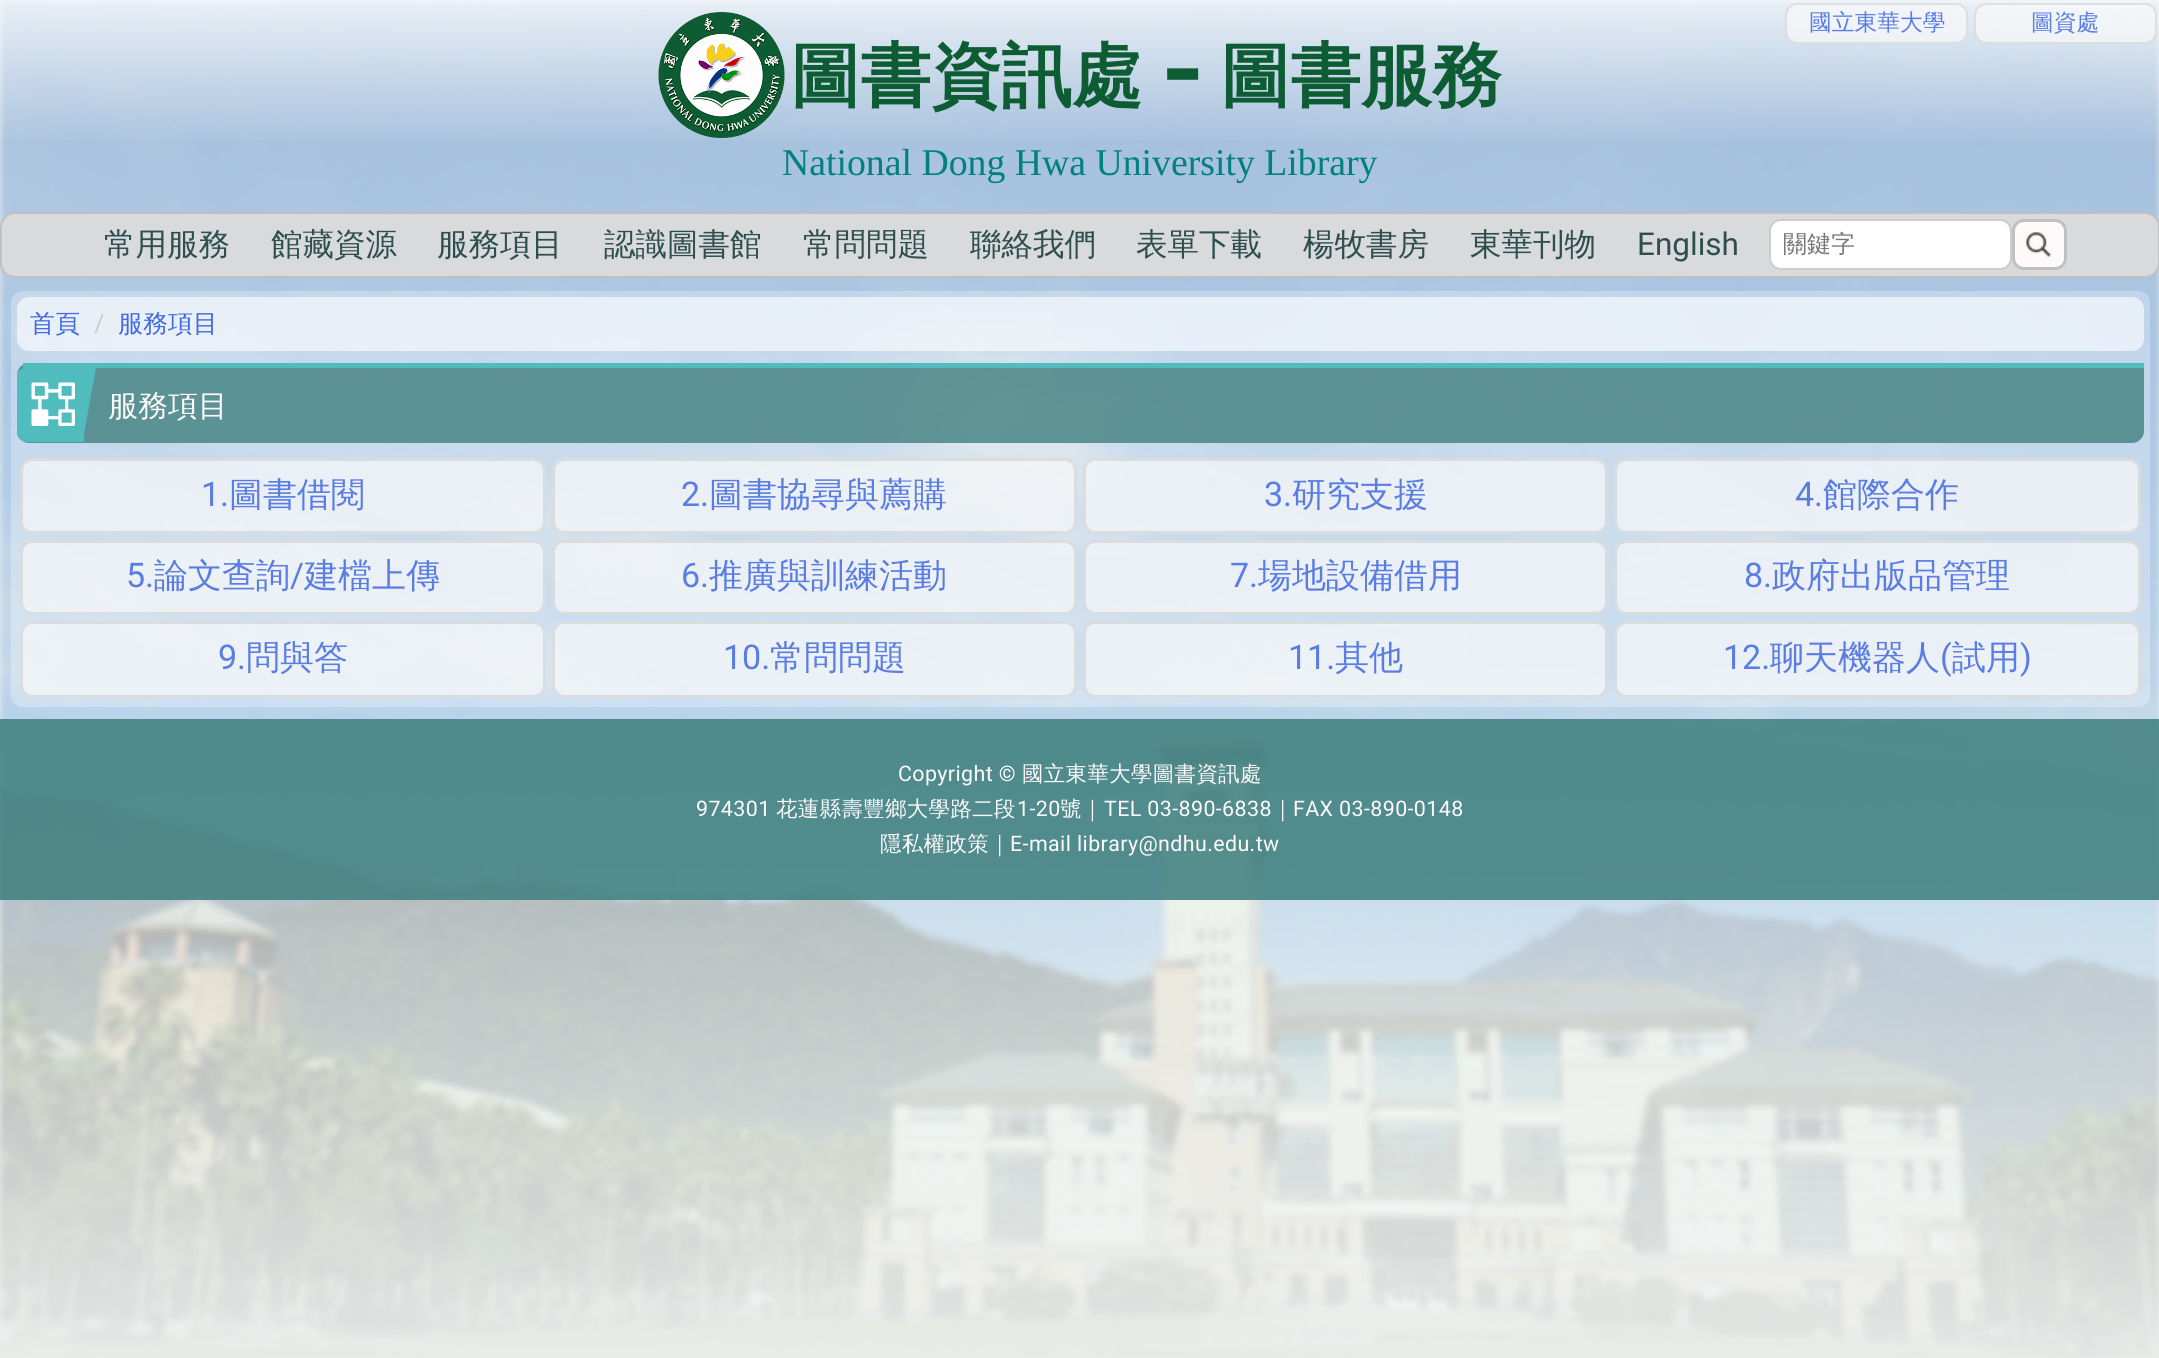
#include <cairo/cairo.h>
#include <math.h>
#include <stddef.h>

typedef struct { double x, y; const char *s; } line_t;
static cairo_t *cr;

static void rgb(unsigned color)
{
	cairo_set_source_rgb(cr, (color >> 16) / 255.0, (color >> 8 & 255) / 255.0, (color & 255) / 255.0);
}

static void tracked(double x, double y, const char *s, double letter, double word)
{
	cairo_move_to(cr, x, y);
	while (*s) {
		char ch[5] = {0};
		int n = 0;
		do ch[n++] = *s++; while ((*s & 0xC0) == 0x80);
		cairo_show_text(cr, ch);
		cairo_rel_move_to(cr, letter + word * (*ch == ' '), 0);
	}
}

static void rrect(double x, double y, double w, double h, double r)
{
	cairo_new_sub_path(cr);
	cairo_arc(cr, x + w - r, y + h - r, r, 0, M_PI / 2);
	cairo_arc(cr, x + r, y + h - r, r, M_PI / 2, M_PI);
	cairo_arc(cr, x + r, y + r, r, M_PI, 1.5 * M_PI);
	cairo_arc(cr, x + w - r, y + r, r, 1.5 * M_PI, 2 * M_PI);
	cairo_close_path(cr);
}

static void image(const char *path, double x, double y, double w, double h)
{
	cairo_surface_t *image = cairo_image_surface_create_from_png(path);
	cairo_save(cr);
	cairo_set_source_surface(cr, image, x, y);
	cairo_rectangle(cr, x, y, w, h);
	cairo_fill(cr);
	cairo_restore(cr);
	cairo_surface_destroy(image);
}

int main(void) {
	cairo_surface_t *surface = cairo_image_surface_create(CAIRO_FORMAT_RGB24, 2159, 1358);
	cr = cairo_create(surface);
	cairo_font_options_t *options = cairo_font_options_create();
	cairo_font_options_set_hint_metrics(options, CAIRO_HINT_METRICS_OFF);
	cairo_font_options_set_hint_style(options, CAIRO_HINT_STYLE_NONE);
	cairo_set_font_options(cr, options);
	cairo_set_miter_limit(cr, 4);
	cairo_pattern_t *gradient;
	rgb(0xeaefee);
	cairo_paint(cr);
	image("img/1.png", 0, 0, 2159, 1358);
	cairo_set_source_rgba(cr, 1, 1, 1, 0.27);
	rrect(11, 291, 2139, 416, 12);
	cairo_fill(cr);
	gradient = cairo_pattern_create_linear(1080, 0, 1080, 291);
	cairo_pattern_add_color_stop_rgba(gradient, 0, 1, 1, 1, 0.75);
	cairo_pattern_add_color_stop_rgba(gradient, 0.5, 1, 1, 1, 0);
	cairo_set_source(cr, gradient);
	cairo_pattern_destroy(gradient);
	cairo_rectangle(cr, 0, 0, 2159, 140);
	cairo_fill(cr);
	cairo_set_source_rgba(cr, 0.98, 0.98, 0.98, 0.68);
	rrect(1787, 5, 180, 37, 11);
	cairo_fill(cr);
	rrect(1786, 4, 181, 39, 11);
	cairo_set_source_rgba(cr, 0.863, 0.863, 0.863, 0.85);
	cairo_stroke(cr);
	cairo_set_source_rgba(cr, 0.98, 0.98, 0.98, 0.68);
	rrect(1976, 5, 180, 37, 11);
	cairo_fill(cr);
	rrect(1975, 4, 181, 39, 11);
	cairo_set_source_rgba(cr, 0.863, 0.863, 0.863, 0.85);
	cairo_stroke(cr);
	cairo_set_source_rgba(cr, 1, 1, 1, 0.6);
	rrect(17, 297, 2127, 54, 12);
	cairo_fill(cr);
	cairo_set_source_rgba(cr, 0.251, 0.502, 0.502, 0.8);
	cairo_new_path(cr);
	cairo_move_to(cr, 29, 363);
	cairo_line_to(cr, 2144, 363);
	cairo_line_to(cr, 2144, 431);
	cairo_curve_to(cr, 2144, 437.5, 2138.5, 443, 2132, 443);
	cairo_line_to(cr, 29, 443);
	cairo_curve_to(cr, 22.5, 443, 17, 437.5, 17, 431);
	cairo_line_to(cr, 17, 375);
	cairo_curve_to(cr, 17, 368.5, 22.5, 363, 29, 363);
	cairo_close_path(cr);
	cairo_fill(cr);
	rgb(0x50bcbd);
	cairo_rectangle(cr, 23, 363, 2121, 5);
	cairo_fill(cr);
	cairo_new_path(cr);
	cairo_move_to(cr, 17, 373);
	cairo_curve_to(cr, 18, 371, 21, 369, 24, 368);
	cairo_line_to(cr, 84, 368);
	cairo_line_to(cr, 84, 442);
	cairo_line_to(cr, 28, 442);
	cairo_curve_to(cr, 23, 442, 18, 439, 17, 434);
	cairo_close_path(cr);
	cairo_fill(cr);
	image("img/2.png", 31, 382, 44, 44);
	cairo_new_path(cr);
	cairo_move_to(cr, 84, 368);
	cairo_line_to(cr, 96, 368);
	cairo_line_to(cr, 84, 434);
	cairo_close_path(cr);
	cairo_fill(cr);
	cairo_set_source_rgba(cr, 0.98, 0.98, 0.98, 0.68);
	rrect(23, 461, 520, 70, 9);
	cairo_fill(cr);
	rrect(21.5, 459.5, 523, 73, 10.5);
	cairo_set_source_rgba(cr, 0.863, 0.863, 0.863, 0.85);
	cairo_set_line_width(cr, 3);
	cairo_stroke(cr);
	cairo_set_source_rgba(cr, 0.98, 0.98, 0.98, 0.68);
	rrect(555, 461, 519, 70, 9);
	cairo_fill(cr);
	rrect(553.5, 459.5, 522, 73, 10.5);
	cairo_set_source_rgba(cr, 0.863, 0.863, 0.863, 0.85);
	cairo_stroke(cr);
	cairo_set_source_rgba(cr, 0.98, 0.98, 0.98, 0.68);
	rrect(1086, 461, 519, 70, 9);
	cairo_fill(cr);
	rrect(1084.5, 459.5, 522, 73, 10.5);
	cairo_set_source_rgba(cr, 0.863, 0.863, 0.863, 0.85);
	cairo_stroke(cr);
	cairo_set_source_rgba(cr, 0.98, 0.98, 0.98, 0.68);
	rrect(1617, 461, 521, 70, 9);
	cairo_fill(cr);
	rrect(1615.5, 459.5, 524, 73, 10.5);
	cairo_set_source_rgba(cr, 0.863, 0.863, 0.863, 0.85);
	cairo_stroke(cr);
	cairo_set_source_rgba(cr, 0.98, 0.98, 0.98, 0.68);
	rrect(23, 543, 520, 69, 9);
	cairo_fill(cr);
	rrect(21.5, 541.5, 523, 72, 10.5);
	cairo_set_source_rgba(cr, 0.863, 0.863, 0.863, 0.85);
	cairo_stroke(cr);
	cairo_set_source_rgba(cr, 0.98, 0.98, 0.98, 0.68);
	rrect(555, 543, 519, 69, 9);
	cairo_fill(cr);
	rrect(553.5, 541.5, 522, 72, 10.5);
	cairo_set_source_rgba(cr, 0.863, 0.863, 0.863, 0.85);
	cairo_stroke(cr);
	cairo_set_source_rgba(cr, 0.98, 0.98, 0.98, 0.68);
	rrect(1086, 543, 519, 69, 9);
	cairo_fill(cr);
	rrect(1084.5, 541.5, 522, 72, 10.5);
	cairo_set_source_rgba(cr, 0.863, 0.863, 0.863, 0.85);
	cairo_stroke(cr);
	cairo_set_source_rgba(cr, 0.98, 0.98, 0.98, 0.68);
	rrect(1617, 543, 521, 69, 9);
	cairo_fill(cr);
	rrect(1615.5, 541.5, 524, 72, 10.5);
	cairo_set_source_rgba(cr, 0.863, 0.863, 0.863, 0.85);
	cairo_stroke(cr);
	cairo_set_source_rgba(cr, 0.98, 0.98, 0.98, 0.68);
	rrect(23, 624, 520, 71, 9);
	cairo_fill(cr);
	rrect(21.5, 622.5, 523, 74, 10.5);
	cairo_set_source_rgba(cr, 0.863, 0.863, 0.863, 0.85);
	cairo_stroke(cr);
	cairo_set_source_rgba(cr, 0.98, 0.98, 0.98, 0.68);
	rrect(555, 624, 519, 71, 9);
	cairo_fill(cr);
	rrect(553.5, 622.5, 522, 74, 10.5);
	cairo_set_source_rgba(cr, 0.863, 0.863, 0.863, 0.85);
	cairo_stroke(cr);
	cairo_set_source_rgba(cr, 0.98, 0.98, 0.98, 0.68);
	rrect(1086, 624, 519, 71, 9);
	cairo_fill(cr);
	rrect(1084.5, 622.5, 522, 74, 10.5);
	cairo_set_source_rgba(cr, 0.863, 0.863, 0.863, 0.85);
	cairo_stroke(cr);
	cairo_set_source_rgba(cr, 0.98, 0.98, 0.98, 0.68);
	rrect(1617, 624, 521, 71, 9);
	cairo_fill(cr);
	rrect(1615.5, 622.5, 524, 74, 10.5);
	cairo_set_source_rgba(cr, 0.863, 0.863, 0.863, 0.85);
	cairo_stroke(cr);
	image("img/3.png", 658, 12, 127, 126);
	cairo_set_source_rgba(cr, 0.863, 0.863, 0.863, 0.95);
	rrect(1, 213, 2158, 64, 14);
	cairo_fill_preserve(cr);
	rgb(0xc0c0c0);
	cairo_set_line_width(cr, 2);
	cairo_stroke(cr);
	rgb(0xffffff);
	rrect(1770, 220, 241, 49, 11);
	cairo_fill_preserve(cr);
	rgb(0xcccccc);
	cairo_stroke(cr);
	rgb(0xfffafa);
	rrect(2013.5, 220.5, 52, 48, 10.5);
	cairo_fill_preserve(cr);
	rgb(0xc0c0c0);
	cairo_set_line_width(cr, 3);
	cairo_stroke(cr);
	image("img/4.png", 2026, 232, 25, 25);
	cairo_set_source_rgba(cr, 0.251, 0.502, 0.502, 0.87);
	cairo_rectangle(cr, 0, 719, 2159, 181);
	cairo_fill(cr);
	cairo_select_font_face(cr, "WenQuanYi Zen Hei Medium", CAIRO_FONT_SLANT_NORMAL, CAIRO_FONT_WEIGHT_NORMAL);
	cairo_set_font_size(cr, 22.75);
	rgb(0x5a7de4);
	cairo_move_to(cr, 1809, 30);
	cairo_show_text(cr, "國立東華大學");
	cairo_move_to(cr, 2031, 30);
	cairo_show_text(cr, "圖資處");
	cairo_set_font_size(cr, 25);
	rgb(0x4169e1);
	cairo_move_to(cr, 30, 332);
	cairo_show_text(cr, "首頁");
	cairo_select_font_face(cr, "Roboto", CAIRO_FONT_SLANT_NORMAL, CAIRO_FONT_WEIGHT_NORMAL);
	rgb(0xcccccc);
	cairo_move_to(cr, 94, 332);
	cairo_show_text(cr, "/");
	cairo_select_font_face(cr, "WenQuanYi Zen Hei Medium", CAIRO_FONT_SLANT_NORMAL, CAIRO_FONT_WEIGHT_NORMAL);
	rgb(0x4169e1);
	cairo_move_to(cr, 118, 332);
	cairo_show_text(cr, "服務項目");
	cairo_set_font_size(cr, 30);
	rgb(0xfffafa);
	cairo_move_to(cr, 108, 416);
	cairo_show_text(cr, "服務項目");
	cairo_select_font_face(cr, "Roboto", CAIRO_FONT_SLANT_NORMAL, CAIRO_FONT_WEIGHT_NORMAL);
	cairo_set_font_size(cr, 34);
	rgb(0x5a7de4);
	cairo_move_to(cr, 201, 506);
	cairo_show_text(cr, "1.");
	cairo_select_font_face(cr, "WenQuanYi Zen Hei Medium", CAIRO_FONT_SLANT_NORMAL, CAIRO_FONT_WEIGHT_NORMAL);
	cairo_move_to(cr, 229, 506);
	cairo_show_text(cr, "圖書借閱");
	cairo_select_font_face(cr, "Roboto", CAIRO_FONT_SLANT_NORMAL, CAIRO_FONT_WEIGHT_NORMAL);
	cairo_move_to(cr, 681, 506);
	cairo_show_text(cr, "2.");
	cairo_select_font_face(cr, "WenQuanYi Zen Hei Medium", CAIRO_FONT_SLANT_NORMAL, CAIRO_FONT_WEIGHT_NORMAL);
	cairo_move_to(cr, 709, 506);
	cairo_show_text(cr, "圖書協尋與薦購");
	cairo_select_font_face(cr, "Roboto", CAIRO_FONT_SLANT_NORMAL, CAIRO_FONT_WEIGHT_NORMAL);
	cairo_move_to(cr, 1264, 506);
	cairo_show_text(cr, "3.");
	cairo_select_font_face(cr, "WenQuanYi Zen Hei Medium", CAIRO_FONT_SLANT_NORMAL, CAIRO_FONT_WEIGHT_NORMAL);
	cairo_move_to(cr, 1292, 506);
	cairo_show_text(cr, "研究支援");
	cairo_select_font_face(cr, "Roboto", CAIRO_FONT_SLANT_NORMAL, CAIRO_FONT_WEIGHT_NORMAL);
	cairo_move_to(cr, 1795, 506);
	cairo_show_text(cr, "4.");
	cairo_select_font_face(cr, "WenQuanYi Zen Hei Medium", CAIRO_FONT_SLANT_NORMAL, CAIRO_FONT_WEIGHT_NORMAL);
	cairo_move_to(cr, 1823, 506);
	cairo_show_text(cr, "館際合作");
	cairo_select_font_face(cr, "Roboto", CAIRO_FONT_SLANT_NORMAL, CAIRO_FONT_WEIGHT_NORMAL);
	cairo_move_to(cr, 126, 587);
	cairo_show_text(cr, "5.");
	cairo_select_font_face(cr, "WenQuanYi Zen Hei Medium", CAIRO_FONT_SLANT_NORMAL, CAIRO_FONT_WEIGHT_NORMAL);
	cairo_move_to(cr, 154, 587);
	cairo_show_text(cr, "論文查詢");
	cairo_select_font_face(cr, "Roboto", CAIRO_FONT_SLANT_NORMAL, CAIRO_FONT_WEIGHT_NORMAL);
	cairo_move_to(cr, 290, 587);
	cairo_show_text(cr, "/");
	cairo_select_font_face(cr, "WenQuanYi Zen Hei Medium", CAIRO_FONT_SLANT_NORMAL, CAIRO_FONT_WEIGHT_NORMAL);
	cairo_move_to(cr, 304, 587);
	cairo_show_text(cr, "建檔上傳");
	cairo_select_font_face(cr, "Roboto", CAIRO_FONT_SLANT_NORMAL, CAIRO_FONT_WEIGHT_NORMAL);
	cairo_move_to(cr, 681, 587);
	cairo_show_text(cr, "6.");
	cairo_select_font_face(cr, "WenQuanYi Zen Hei Medium", CAIRO_FONT_SLANT_NORMAL, CAIRO_FONT_WEIGHT_NORMAL);
	cairo_move_to(cr, 709, 587);
	cairo_show_text(cr, "推廣與訓練活動");
	cairo_select_font_face(cr, "Roboto", CAIRO_FONT_SLANT_NORMAL, CAIRO_FONT_WEIGHT_NORMAL);
	cairo_move_to(cr, 1230, 587);
	cairo_show_text(cr, "7.");
	cairo_select_font_face(cr, "WenQuanYi Zen Hei Medium", CAIRO_FONT_SLANT_NORMAL, CAIRO_FONT_WEIGHT_NORMAL);
	cairo_move_to(cr, 1258, 587);
	cairo_show_text(cr, "場地設備借用");
	cairo_select_font_face(cr, "Roboto", CAIRO_FONT_SLANT_NORMAL, CAIRO_FONT_WEIGHT_NORMAL);
	cairo_move_to(cr, 1744, 587);
	cairo_show_text(cr, "8.");
	cairo_select_font_face(cr, "WenQuanYi Zen Hei Medium", CAIRO_FONT_SLANT_NORMAL, CAIRO_FONT_WEIGHT_NORMAL);
	cairo_move_to(cr, 1772, 587);
	cairo_show_text(cr, "政府出版品管理");
	cairo_select_font_face(cr, "Roboto", CAIRO_FONT_SLANT_NORMAL, CAIRO_FONT_WEIGHT_NORMAL);
	cairo_move_to(cr, 218, 669);
	cairo_show_text(cr, "9.");
	cairo_select_font_face(cr, "WenQuanYi Zen Hei Medium", CAIRO_FONT_SLANT_NORMAL, CAIRO_FONT_WEIGHT_NORMAL);
	cairo_move_to(cr, 246, 669);
	cairo_show_text(cr, "問與答");
	cairo_select_font_face(cr, "Roboto", CAIRO_FONT_SLANT_NORMAL, CAIRO_FONT_WEIGHT_NORMAL);
	cairo_move_to(cr, 723, 669);
	cairo_show_text(cr, "10.");
	cairo_select_font_face(cr, "WenQuanYi Zen Hei Medium", CAIRO_FONT_SLANT_NORMAL, CAIRO_FONT_WEIGHT_NORMAL);
	cairo_move_to(cr, 770, 669);
	cairo_show_text(cr, "常問問題");
	cairo_select_font_face(cr, "Roboto", CAIRO_FONT_SLANT_NORMAL, CAIRO_FONT_WEIGHT_NORMAL);
	cairo_move_to(cr, 1288, 669);
	cairo_show_text(cr, "11.");
	cairo_select_font_face(cr, "WenQuanYi Zen Hei Medium", CAIRO_FONT_SLANT_NORMAL, CAIRO_FONT_WEIGHT_NORMAL);
	cairo_move_to(cr, 1335, 669);
	cairo_show_text(cr, "其他");
	cairo_select_font_face(cr, "Roboto", CAIRO_FONT_SLANT_NORMAL, CAIRO_FONT_WEIGHT_NORMAL);
	cairo_move_to(cr, 1723, 669);
	cairo_show_text(cr, "12.");
	cairo_select_font_face(cr, "WenQuanYi Zen Hei Medium", CAIRO_FONT_SLANT_NORMAL, CAIRO_FONT_WEIGHT_NORMAL);
	cairo_move_to(cr, 1770, 669);
	cairo_show_text(cr, "聊天機器人");
	cairo_select_font_face(cr, "Roboto", CAIRO_FONT_SLANT_NORMAL, CAIRO_FONT_WEIGHT_NORMAL);
	cairo_move_to(cr, 1940, 669);
	cairo_show_text(cr, "(");
	cairo_select_font_face(cr, "WenQuanYi Zen Hei Medium", CAIRO_FONT_SLANT_NORMAL, CAIRO_FONT_WEIGHT_NORMAL);
	cairo_move_to(cr, 1952, 669);
	cairo_show_text(cr, "試用");
	cairo_select_font_face(cr, "Roboto", CAIRO_FONT_SLANT_NORMAL, CAIRO_FONT_WEIGHT_NORMAL);
	cairo_move_to(cr, 2020, 669);
	cairo_show_text(cr, ")");
	cairo_select_font_face(cr, "WenQuanYi Zen Hei", CAIRO_FONT_SLANT_NORMAL, CAIRO_FONT_WEIGHT_BOLD);
	cairo_set_font_size(cr, 70.5);
	rgb(0x0e5c34);
	cairo_move_to(cr, 790, 100);
	cairo_show_text(cr, "圖書資訊處");
	cairo_select_font_face(cr, "Righteous", CAIRO_FONT_SLANT_NORMAL, CAIRO_FONT_WEIGHT_BOLD);
	cairo_move_to(cr, 1163, 100);
	cairo_show_text(cr, "-");
	cairo_select_font_face(cr, "WenQuanYi Zen Hei", CAIRO_FONT_SLANT_NORMAL, CAIRO_FONT_WEIGHT_BOLD);
	cairo_move_to(cr, 1220, 100);
	cairo_show_text(cr, "圖書服務");
	cairo_select_font_face(cr, "Liberation Serif", CAIRO_FONT_SLANT_NORMAL, CAIRO_FONT_WEIGHT_NORMAL);
	cairo_set_font_size(cr, 37.75);
	rgb(0x008080);
	cairo_move_to(cr, 782, 175);
	cairo_show_text(cr, "National Dong Hwa University Library");
	cairo_select_font_face(cr, "WenQuanYi Zen Hei Medium", CAIRO_FONT_SLANT_NORMAL, CAIRO_FONT_WEIGHT_NORMAL);
	cairo_set_font_size(cr, 31.5);
	rgb(0x2f4f4f);
	{
		static const line_t items[] = {
			{104, 255, "常用服務"},
			{271, 255, "館藏資源"},
			{437, 255, "服務項目"},
			{604, 255, "認識圖書館"},
			{803, 255, "常問問題"},
			{970, 255, "聯絡我們"},
			{1136, 255, "表單下載"},
			{1303, 255, "楊牧書房"},
			{1470, 255, "東華刊物"},
		};
		for (size_t i = 0; i < sizeof items / sizeof *items; i++) {
			cairo_move_to(cr, items[i].x, items[i].y);
			cairo_show_text(cr, items[i].s);
		}
	}
	cairo_select_font_face(cr, "Roboto", CAIRO_FONT_SLANT_NORMAL, CAIRO_FONT_WEIGHT_NORMAL);
	cairo_move_to(cr, 1637, 255);
	cairo_show_text(cr, "English");
	cairo_select_font_face(cr, "WenQuanYi Zen Hei Medium", CAIRO_FONT_SLANT_NORMAL, CAIRO_FONT_WEIGHT_NORMAL);
	cairo_set_font_size(cr, 24);
	rgb(0x777777);
	cairo_move_to(cr, 1783, 252);
	cairo_show_text(cr, "關鍵字");
	cairo_select_font_face(cr, "Roboto", CAIRO_FONT_SLANT_NORMAL, CAIRO_FONT_WEIGHT_NORMAL);
	cairo_set_font_size(cr, 21.4);
	rgb(0xfffafa);
	tracked(898, 781, "Copyright ©", 0.4, 0);
	cairo_select_font_face(cr, "WenQuanYi Zen Hei Medium", CAIRO_FONT_SLANT_NORMAL, CAIRO_FONT_WEIGHT_NORMAL);
	tracked(1022, 781, "國立東華大學圖書資訊處", 0.4, 0);
	cairo_select_font_face(cr, "Roboto", CAIRO_FONT_SLANT_NORMAL, CAIRO_FONT_WEIGHT_NORMAL);
	tracked(696, 816, "974301", 0.4, 0);
	cairo_select_font_face(cr, "WenQuanYi Zen Hei Medium", CAIRO_FONT_SLANT_NORMAL, CAIRO_FONT_WEIGHT_NORMAL);
	tracked(776, 816, "花蓮縣壽豐鄉大學路二段", 0.4, 0);
	cairo_select_font_face(cr, "Roboto", CAIRO_FONT_SLANT_NORMAL, CAIRO_FONT_WEIGHT_NORMAL);
	tracked(1017, 816, "1-20", 0.4, 0);
	cairo_select_font_face(cr, "WenQuanYi Zen Hei Medium", CAIRO_FONT_SLANT_NORMAL, CAIRO_FONT_WEIGHT_NORMAL);
	tracked(1060, 816, "號｜", 0.4, 0);
	cairo_select_font_face(cr, "Roboto", CAIRO_FONT_SLANT_NORMAL, CAIRO_FONT_WEIGHT_NORMAL);
	tracked(1104, 816, "TEL 03-890-6838", 0.4, 0);
	cairo_select_font_face(cr, "WenQuanYi Zen Hei Medium", CAIRO_FONT_SLANT_NORMAL, CAIRO_FONT_WEIGHT_NORMAL);
	tracked(1272, 816, "｜", 0.4, 0);
	cairo_select_font_face(cr, "Roboto", CAIRO_FONT_SLANT_NORMAL, CAIRO_FONT_WEIGHT_NORMAL);
	tracked(1293, 816, "FAX 03-890-0148", 0.4, 0);
	cairo_select_font_face(cr, "WenQuanYi Zen Hei Medium", CAIRO_FONT_SLANT_NORMAL, CAIRO_FONT_WEIGHT_NORMAL);
	tracked(880, 851, "隱私權政策｜", 0.4, 0);
	cairo_select_font_face(cr, "Roboto", CAIRO_FONT_SLANT_NORMAL, CAIRO_FONT_WEIGHT_NORMAL);
	tracked(1010, 851, "E-mail library@ndhu.edu.tw", 0.4, 0);
	cairo_surface_write_to_png(surface, "page.png");
	cairo_font_options_destroy(options);
	cairo_destroy(cr);
	cairo_surface_destroy(surface);
	return 0;
}
